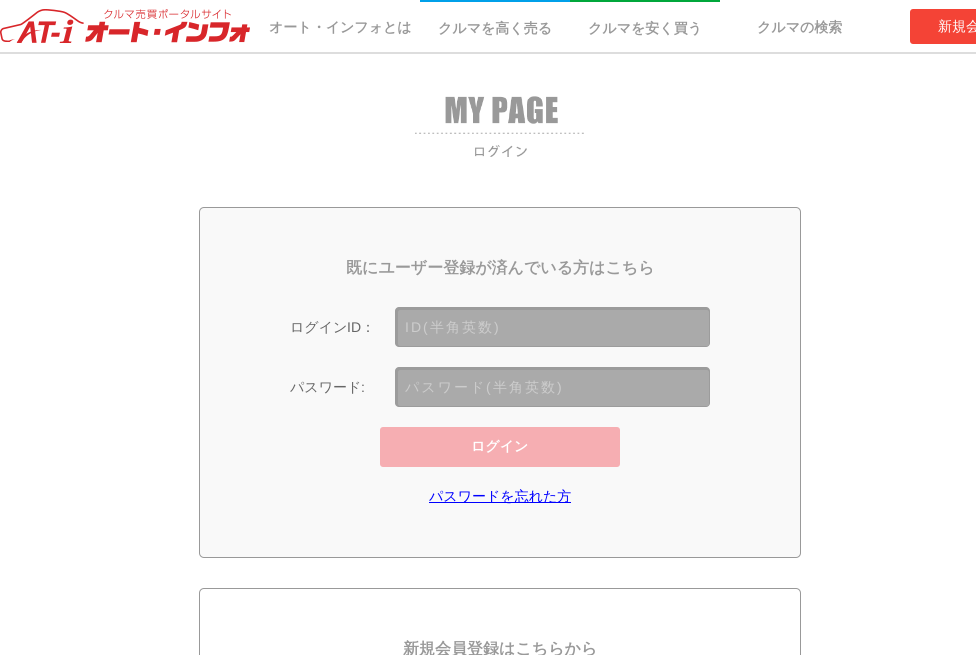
#include <cairo/cairo.h>
#include <math.h>
#include <stddef.h>

typedef struct { double x, y; const char *s; } line_t;
static cairo_t *cr;

static void rgb(unsigned color)
{
	cairo_set_source_rgb(cr, (color >> 16) / 255.0, (color >> 8 & 255) / 255.0, (color & 255) / 255.0);
}

static void tracked(double x, double y, const char *s, double letter, double word)
{
	cairo_move_to(cr, x, y);
	while (*s) {
		char ch[5] = {0};
		int n = 0;
		do ch[n++] = *s++; while ((*s & 0xC0) == 0x80);
		cairo_show_text(cr, ch);
		cairo_rel_move_to(cr, letter + word * (*ch == ' '), 0);
	}
}

static void rrect(double x, double y, double w, double h, double r)
{
	cairo_new_sub_path(cr);
	cairo_arc(cr, x + w - r, y + h - r, r, 0, M_PI / 2);
	cairo_arc(cr, x + r, y + h - r, r, M_PI / 2, M_PI);
	cairo_arc(cr, x + r, y + r, r, M_PI, 1.5 * M_PI);
	cairo_arc(cr, x + w - r, y + r, r, 1.5 * M_PI, 2 * M_PI);
	cairo_close_path(cr);
}

static void image(const char *path, double x, double y, double w, double h)
{
	cairo_surface_t *image = cairo_image_surface_create_from_png(path);
	cairo_save(cr);
	cairo_set_source_surface(cr, image, x, y);
	cairo_rectangle(cr, x, y, w, h);
	cairo_fill(cr);
	cairo_restore(cr);
	cairo_surface_destroy(image);
}

int main(void) {
	cairo_surface_t *surface = cairo_image_surface_create(CAIRO_FORMAT_RGB24, 976, 655);
	cr = cairo_create(surface);
	cairo_font_options_t *options = cairo_font_options_create();
	cairo_font_options_set_hint_metrics(options, CAIRO_HINT_METRICS_OFF);
	cairo_font_options_set_hint_style(options, CAIRO_HINT_STYLE_NONE);
	cairo_set_font_options(cr, options);
	cairo_set_miter_limit(cr, 4);
	rgb(0xffffff);
	cairo_paint(cr);
	rgb(0xdddddd);
	cairo_rectangle(cr, 0, 52, 976, 2);
	cairo_fill(cr);
	image("img/1.png", 0, 9, 250, 34);
	rgb(0x00a0e9);
	cairo_rectangle(cr, 420, 0, 150, 2);
	cairo_fill(cr);
	rgb(0x00a73b);
	cairo_rectangle(cr, 570, 0, 150, 2);
	cairo_fill(cr);
	rgb(0xf44336);
	rrect(910, 9, 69, 35, 3);
	cairo_fill(cr);
	image("img/2.png", 415, 96, 169, 61);
	rgb(0xf9f9f9);
	rrect(199.5, 207.5, 601, 350, 4.5);
	cairo_fill_preserve(cr);
	rgb(0x999999);
	cairo_set_line_width(cr, 1);
	cairo_stroke(cr);
	rgb(0xaaaaaa);
	rrect(395, 307, 315, 40, 4);
	cairo_fill(cr);
	cairo_set_source_rgba(cr, 0.392, 0.392, 0.392, 0.2);
	cairo_set_fill_rule(cr, CAIRO_FILL_RULE_EVEN_ODD);
	cairo_new_path(cr);
	cairo_move_to(cr, 399, 307);
	cairo_curve_to(cr, 397, 307, 395, 309, 395, 311);
	cairo_line_to(cr, 395, 343);
	cairo_curve_to(cr, 395, 345, 397, 347, 399, 347);
	cairo_line_to(cr, 706, 347);
	cairo_curve_to(cr, 708, 347, 710, 345, 710, 343);
	cairo_line_to(cr, 710, 311);
	cairo_curve_to(cr, 710, 309, 708, 307, 706, 307);
	cairo_close_path(cr);
	cairo_move_to(cr, 400, 310);
	cairo_curve_to(cr, 399, 310, 398, 311, 398, 312);
	cairo_line_to(cr, 398, 344);
	cairo_curve_to(cr, 398, 345, 399, 346, 400, 346);
	cairo_line_to(cr, 707, 346);
	cairo_curve_to(cr, 708, 346, 709, 345, 709, 344);
	cairo_line_to(cr, 709, 312);
	cairo_curve_to(cr, 709, 311, 708, 310, 707, 310);
	cairo_close_path(cr);
	cairo_fill(cr);
	rgb(0xaaaaaa);
	rrect(395, 367, 315, 40, 4);
	cairo_fill(cr);
	cairo_set_source_rgba(cr, 0.392, 0.392, 0.392, 0.2);
	cairo_new_path(cr);
	cairo_move_to(cr, 399, 367);
	cairo_curve_to(cr, 397, 367, 395, 369, 395, 371);
	cairo_line_to(cr, 395, 403);
	cairo_curve_to(cr, 395, 405, 397, 407, 399, 407);
	cairo_line_to(cr, 706, 407);
	cairo_curve_to(cr, 708, 407, 710, 405, 710, 403);
	cairo_line_to(cr, 710, 371);
	cairo_curve_to(cr, 710, 369, 708, 367, 706, 367);
	cairo_close_path(cr);
	cairo_move_to(cr, 400, 370);
	cairo_curve_to(cr, 399, 370, 398, 371, 398, 372);
	cairo_line_to(cr, 398, 404);
	cairo_curve_to(cr, 398, 405, 399, 406, 400, 406);
	cairo_line_to(cr, 707, 406);
	cairo_curve_to(cr, 708, 406, 709, 405, 709, 404);
	cairo_line_to(cr, 709, 372);
	cairo_curve_to(cr, 709, 371, 708, 370, 707, 370);
	cairo_close_path(cr);
	cairo_fill(cr);
	rgb(0xf6aeb2);
	rrect(380, 427, 240, 40, 3);
	cairo_fill(cr);
	rgb(0x0000ff);
	cairo_rectangle(cr, 429, 502, 142, 1);
	cairo_fill(cr);
	rrect(199.5, 588.5, 601, 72, 4.5);
	rgb(0x999999);
	cairo_stroke(cr);
	cairo_select_font_face(cr, "WenQuanYi Zen Hei", CAIRO_FONT_SLANT_NORMAL, CAIRO_FONT_WEIGHT_BOLD);
	cairo_set_font_size(cr, 14);
	{
		static const line_t items[] = {
			{269, 32, "オート・インフォとは"},
			{438, 33, "クルマを高く売る"},
			{588, 33, "クルマを安く買う"},
			{757, 32, "クルマの検索"},
		};
		for (size_t i = 0; i < sizeof items / sizeof *items; i++) {
			cairo_move_to(cr, items[i].x, items[i].y);
			cairo_show_text(cr, items[i].s);
		}
	}
	cairo_select_font_face(cr, "WenQuanYi Zen Hei Medium", CAIRO_FONT_SLANT_NORMAL, CAIRO_FONT_WEIGHT_NORMAL);
	rgb(0xffffff);
	cairo_move_to(cr, 938, 31);
	cairo_show_text(cr, "新規会");
	cairo_select_font_face(cr, "WenQuanYi Zen Hei", CAIRO_FONT_SLANT_NORMAL, CAIRO_FONT_WEIGHT_BOLD);
	cairo_set_font_size(cr, 16);
	rgb(0x999999);
	cairo_move_to(cr, 346, 273);
	cairo_show_text(cr, "既にユーザー登録が済んでいる方はこちら");
	cairo_select_font_face(cr, "WenQuanYi Zen Hei Medium", CAIRO_FONT_SLANT_NORMAL, CAIRO_FONT_WEIGHT_NORMAL);
	cairo_set_font_size(cr, 14);
	rgb(0x666666);
	cairo_move_to(cr, 290, 332);
	cairo_show_text(cr, "ログイン");
	cairo_select_font_face(cr, "Liberation Sans", CAIRO_FONT_SLANT_NORMAL, CAIRO_FONT_WEIGHT_NORMAL);
	cairo_move_to(cr, 347, 332);
	cairo_show_text(cr, "ID");
	cairo_select_font_face(cr, "WenQuanYi Zen Hei Medium", CAIRO_FONT_SLANT_NORMAL, CAIRO_FONT_WEIGHT_NORMAL);
	cairo_move_to(cr, 361, 332);
	cairo_show_text(cr, "：");
	cairo_select_font_face(cr, "Liberation Sans", CAIRO_FONT_SLANT_NORMAL, CAIRO_FONT_WEIGHT_NORMAL);
	rgb(0xcccccc);
	tracked(405, 332, "ID(", 2, 0);
	cairo_select_font_face(cr, "WenQuanYi Zen Hei Medium", CAIRO_FONT_SLANT_NORMAL, CAIRO_FONT_WEIGHT_NORMAL);
	tracked(430, 332, "半角英数", 2, 0);
	cairo_select_font_face(cr, "Liberation Sans", CAIRO_FONT_SLANT_NORMAL, CAIRO_FONT_WEIGHT_NORMAL);
	tracked(494, 332, ")", 2, 0);
	cairo_select_font_face(cr, "WenQuanYi Zen Hei Medium", CAIRO_FONT_SLANT_NORMAL, CAIRO_FONT_WEIGHT_NORMAL);
	rgb(0x666666);
	cairo_move_to(cr, 290, 392);
	cairo_show_text(cr, "パスワード");
	cairo_select_font_face(cr, "Liberation Sans", CAIRO_FONT_SLANT_NORMAL, CAIRO_FONT_WEIGHT_NORMAL);
	cairo_move_to(cr, 361, 392);
	cairo_show_text(cr, ":");
	cairo_select_font_face(cr, "WenQuanYi Zen Hei Medium", CAIRO_FONT_SLANT_NORMAL, CAIRO_FONT_WEIGHT_NORMAL);
	rgb(0xcccccc);
	tracked(405, 392, "パスワード", 2, 0);
	cairo_select_font_face(cr, "Liberation Sans", CAIRO_FONT_SLANT_NORMAL, CAIRO_FONT_WEIGHT_NORMAL);
	tracked(486, 392, "(", 2, 0);
	cairo_select_font_face(cr, "WenQuanYi Zen Hei Medium", CAIRO_FONT_SLANT_NORMAL, CAIRO_FONT_WEIGHT_NORMAL);
	tracked(493, 392, "半角英数", 2, 0);
	cairo_select_font_face(cr, "Liberation Sans", CAIRO_FONT_SLANT_NORMAL, CAIRO_FONT_WEIGHT_NORMAL);
	tracked(557, 392, ")", 2, 0);
	cairo_select_font_face(cr, "WenQuanYi Zen Hei", CAIRO_FONT_SLANT_NORMAL, CAIRO_FONT_WEIGHT_BOLD);
	rgb(0xffffff);
	cairo_move_to(cr, 471, 451);
	cairo_show_text(cr, "ログイン");
	cairo_select_font_face(cr, "WenQuanYi Zen Hei Medium", CAIRO_FONT_SLANT_NORMAL, CAIRO_FONT_WEIGHT_NORMAL);
	rgb(0x0000ff);
	cairo_move_to(cr, 429, 501);
	cairo_show_text(cr, "パスワードを忘れた方");
	cairo_select_font_face(cr, "WenQuanYi Zen Hei", CAIRO_FONT_SLANT_NORMAL, CAIRO_FONT_WEIGHT_BOLD);
	cairo_set_font_size(cr, 16);
	rgb(0x999999);
	cairo_move_to(cr, 403, 654);
	cairo_show_text(cr, "新規会員登録はこちらから");
	cairo_surface_write_to_png(surface, "page.png");
	cairo_font_options_destroy(options);
	cairo_destroy(cr);
	cairo_surface_destroy(surface);
	return 0;
}
